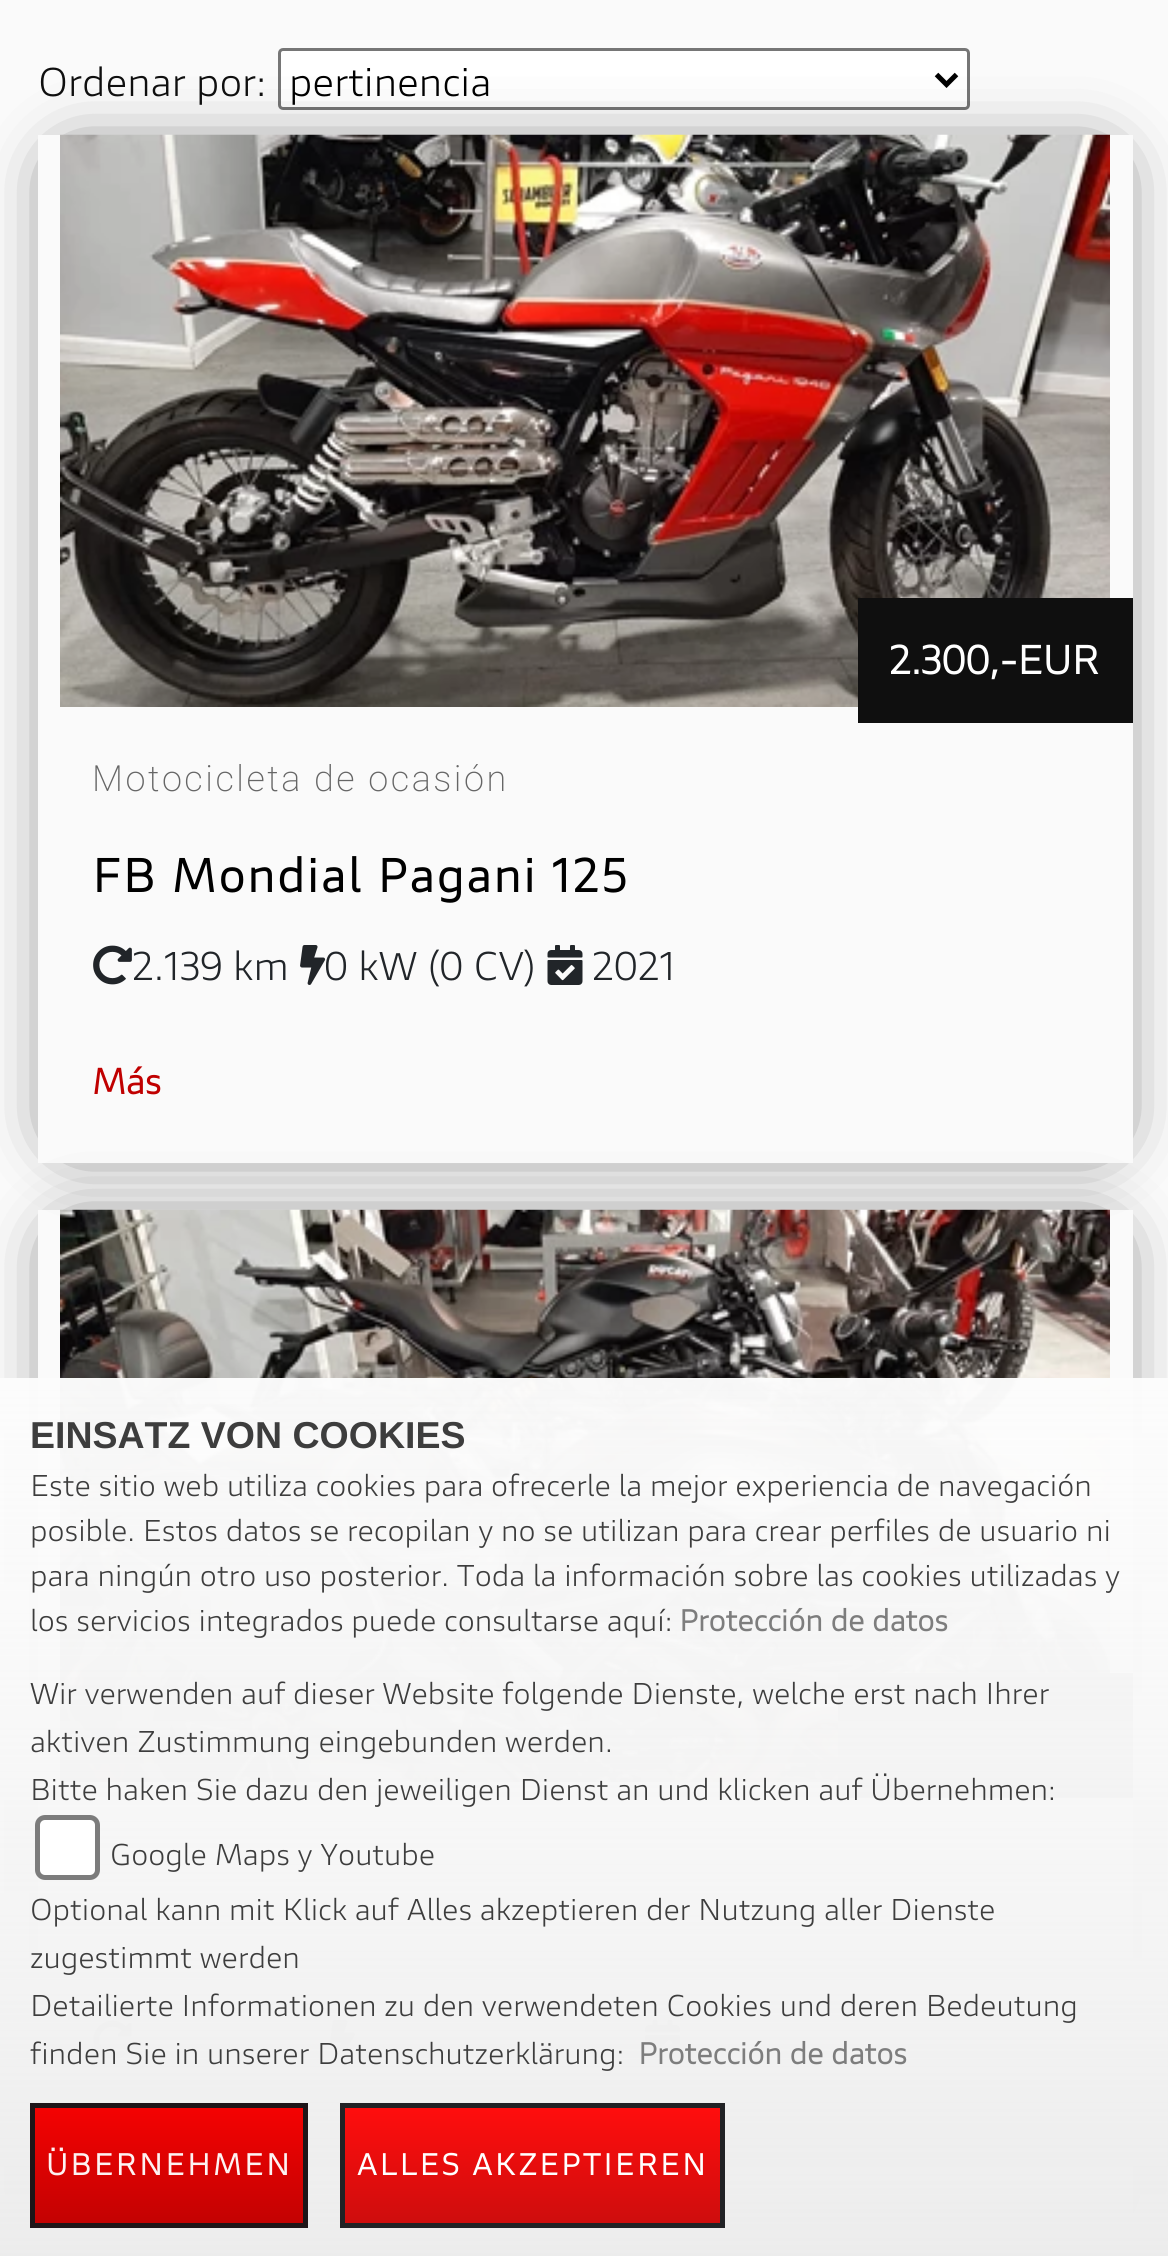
#include <cairo/cairo.h>
#include <math.h>
#include <stddef.h>

typedef struct { double x, y; const char *s; } line_t;
static cairo_t *cr;

static void rgb(unsigned color)
{
	cairo_set_source_rgb(cr, (color >> 16) / 255.0, (color >> 8 & 255) / 255.0, (color & 255) / 255.0);
}

static void tracked(double x, double y, const char *s, double letter, double word)
{
	cairo_move_to(cr, x, y);
	while (*s) {
		char ch[5] = {0};
		int n = 0;
		do ch[n++] = *s++; while ((*s & 0xC0) == 0x80);
		cairo_show_text(cr, ch);
		cairo_rel_move_to(cr, letter + word * (*ch == ' '), 0);
	}
}

static void rrect(double x, double y, double w, double h, double r)
{
	cairo_new_sub_path(cr);
	cairo_arc(cr, x + w - r, y + h - r, r, 0, M_PI / 2);
	cairo_arc(cr, x + r, y + h - r, r, M_PI / 2, M_PI);
	cairo_arc(cr, x + r, y + r, r, M_PI, 1.5 * M_PI);
	cairo_arc(cr, x + w - r, y + r, r, 1.5 * M_PI, 2 * M_PI);
	cairo_close_path(cr);
}

static void soft_shadow(double x, double y, double w, double h, double r, double blur, double alpha)
{
	cairo_push_group_with_content(cr, CAIRO_CONTENT_ALPHA);
	cairo_set_operator(cr, CAIRO_OPERATOR_SOURCE);
	for (int i = 15; i >= -15 && fmin(w, h) + blur * i / 3 > 0; i -= 2) {
		double e = blur * i / 6;
		cairo_set_source_rgba(cr, 0, 0, 0, alpha * erfc((i - 1) / 8.5) / 2);
		rrect(x - e, y - e, w + 2 * e, h + 2 * e, fmax(0, fmin(r + e + blur * .6, fmin(w, h) / 2 + e)));
		cairo_fill(cr);
	}
	cairo_pattern_t *soft = cairo_pop_group(cr);
	cairo_mask(cr, soft);
	cairo_pattern_destroy(soft);
}

static void image(const char *path, double x, double y, double w, double h)
{
	cairo_surface_t *image = cairo_image_surface_create_from_png(path);
	cairo_save(cr);
	cairo_set_source_surface(cr, image, x, y);
	cairo_rectangle(cr, x, y, w, h);
	cairo_fill(cr);
	cairo_restore(cr);
	cairo_surface_destroy(image);
}

int main(void) {
	cairo_surface_t *surface = cairo_image_surface_create(CAIRO_FORMAT_RGB24, 1168, 2256);
	cr = cairo_create(surface);
	cairo_font_options_t *options = cairo_font_options_create();
	cairo_font_options_set_hint_metrics(options, CAIRO_HINT_METRICS_OFF);
	cairo_font_options_set_hint_style(options, CAIRO_HINT_STYLE_NONE);
	cairo_set_font_options(cr, options);
	cairo_set_miter_limit(cr, 4);
	cairo_pattern_t *gradient;
	rgb(0xfafafa);
	cairo_paint(cr);
	rgb(0xffffff);
	rrect(279.5, 49.5, 689, 59, 3.5);
	cairo_fill_preserve(cr);
	rgb(0x767676);
	cairo_set_line_width(cr, 3);
	cairo_stroke(cr);
	cairo_new_path(cr);
	cairo_move_to(cr, 936.5, 74.5);
	cairo_line_to(cr, 946.5, 84.5);
	cairo_line_to(cr, 956.5, 74.5);
	rgb(0x000000);
	cairo_set_line_width(cr, 5);
	cairo_stroke(cr);
	cairo_save(cr);
	cairo_set_fill_rule(cr, CAIRO_FILL_RULE_EVEN_ODD);
	cairo_new_path(cr);
	cairo_move_to(cr, 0, 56);
	cairo_line_to(cr, 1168, 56);
	cairo_line_to(cr, 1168, 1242);
	cairo_line_to(cr, 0, 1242);
	cairo_close_path(cr);
	cairo_move_to(cr, 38, 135);
	cairo_line_to(cr, 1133, 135);
	cairo_line_to(cr, 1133, 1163);
	cairo_line_to(cr, 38, 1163);
	cairo_close_path(cr);
	cairo_clip(cr);
	rgb(0x000000);
	soft_shadow(73, 170, 1025, 958, 0, 37.5, 1);
	cairo_restore(cr);
	image("img/1.png", 60, 134, 1050, 573);
	rgb(0x0f0f0f);
	cairo_rectangle(cr, 858, 598, 275, 125);
	cairo_fill(cr);
	image("img/2.png", 93, 945, 39, 40);
	image("img/3.png", 300, 945, 26, 40);
	image("img/4.png", 547, 945, 36, 40);
	cairo_save(cr);
	cairo_set_fill_rule(cr, CAIRO_FILL_RULE_EVEN_ODD);
	cairo_new_path(cr);
	cairo_move_to(cr, 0, 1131);
	cairo_line_to(cr, 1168, 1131);
	cairo_line_to(cr, 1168, 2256);
	cairo_line_to(cr, 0, 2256);
	cairo_close_path(cr);
	cairo_move_to(cr, 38, 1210);
	cairo_line_to(cr, 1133, 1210);
	cairo_line_to(cr, 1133, 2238);
	cairo_line_to(cr, 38, 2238);
	cairo_close_path(cr);
	cairo_clip(cr);
	rgb(0x000000);
	soft_shadow(73, 1245, 1025, 958, 0, 37.5, 1);
	cairo_restore(cr);
	image("img/5.png", 60, 1209, 1050, 573);
	cairo_rectangle(cr, 838, 1673, 295, 125);
	cairo_fill(cr);
	image("img/2.png", 93, 2020, 39, 40);
	image("img/3.png", 330, 2020, 26, 40);
	image("img/6.png", 645, 2020, 35, 40);
	cairo_set_source_rgba(cr, 0.98, 0.98, 0.98, 0.95);
	cairo_rectangle(cr, 0, 1378, 1168, 878);
	cairo_fill(cr);
	gradient = cairo_pattern_create_linear(585, 1378, 585, 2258);
	cairo_pattern_add_color_stop_rgba(gradient, 0, 1, 1, 1, 0.47);
	cairo_pattern_add_color_stop_rgba(gradient, 1, 0.922, 0.922, 0.922, 0.95);
	cairo_set_source(cr, gradient);
	cairo_pattern_destroy(gradient);
	cairo_rectangle(cr, 0, 1378, 1168, 878);
	cairo_fill(cr);
	cairo_set_source_rgba(cr, 1, 1, 1, 0.95);
	rrect(35, 1815, 65, 65, 10);
	cairo_fill(cr);
	rrect(37.5, 1817.5, 60, 60, 7.5);
	cairo_set_source_rgba(cr, 0.463, 0.463, 0.463, 0.95);
	cairo_stroke(cr);
	gradient = cairo_pattern_create_linear(169, 1993, 169, 2108);
	cairo_pattern_add_color_stop_rgba(gradient, 0, 0.957, 0.008, 0.008, 1);
	cairo_pattern_add_color_stop_rgba(gradient, 1, 0.765, 0.008, 0.008, 1);
	cairo_set_source(cr, gradient);
	cairo_pattern_destroy(gradient);
	cairo_rectangle(cr, 30, 2103, 278, 5);
	cairo_fill(cr);
	gradient = cairo_pattern_create_linear(169, 2108, 169, 2223);
	cairo_pattern_add_color_stop_rgba(gradient, 0, 0.957, 0.008, 0.008, 1);
	cairo_pattern_add_color_stop_rgba(gradient, 1, 0.765, 0.008, 0.008, 1);
	cairo_set_source(cr, gradient);
	cairo_pattern_destroy(gradient);
	cairo_rectangle(cr, 30, 2108, 278, 115);
	cairo_fill(cr);
	gradient = cairo_pattern_create_linear(169, 2223, 169, 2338);
	cairo_pattern_add_color_stop_rgba(gradient, 0, 0.957, 0.008, 0.008, 1);
	cairo_pattern_add_color_stop_rgba(gradient, 1, 0.765, 0.008, 0.008, 1);
	cairo_set_source(cr, gradient);
	cairo_pattern_destroy(gradient);
	cairo_rectangle(cr, 30, 2223, 278, 5);
	cairo_fill(cr);
	cairo_rectangle(cr, 32.5, 2105.5, 273, 120);
	cairo_set_source_rgba(cr, 0.086, 0.09, 0.102, 0.95);
	cairo_stroke(cr);
	gradient = cairo_pattern_create_linear(533, 2108, 533, 2223);
	cairo_pattern_add_color_stop_rgba(gradient, 0, 1, 0.051, 0.051, 1);
	cairo_pattern_add_color_stop_rgba(gradient, 1, 0.808, 0.051, 0.051, 1);
	cairo_set_source(cr, gradient);
	cairo_pattern_destroy(gradient);
	cairo_rectangle(cr, 345, 2108, 375, 115);
	cairo_fill(cr);
	cairo_rectangle(cr, 342.5, 2105.5, 380, 120);
	rgb(0x212225);
	cairo_stroke(cr);
	cairo_select_font_face(cr, "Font", CAIRO_FONT_SLANT_NORMAL, CAIRO_FONT_WEIGHT_NORMAL);
	cairo_set_font_size(cr, 40);
	rgb(0x0f0f0f);
	cairo_move_to(cr, 38, 96);
	cairo_show_text(cr, "Ordenar por:");
	rgb(0x000000);
	cairo_move_to(cr, 289, 96);
	cairo_show_text(cr, "pertinencia");
	cairo_select_font_face(cr, "Font", CAIRO_FONT_SLANT_NORMAL, CAIRO_FONT_WEIGHT_BOLD);
	rgb(0xffffff);
	cairo_move_to(cr, 889, 674);
	cairo_show_text(cr, "2.300,-EUR");
	cairo_select_font_face(cr, "Font", CAIRO_FONT_SLANT_NORMAL, CAIRO_FONT_WEIGHT_NORMAL);
	rgb(0x212529);
	{
		static const line_t items[] = {
			{132, 980, "2.139 km"},
			{324, 980, "0 kW (0 CV)"},
			{592, 980, "2021"},
		};
		for (size_t i = 0; i < sizeof items / sizeof *items; i++) {
			cairo_move_to(cr, items[i].x, items[i].y);
			cairo_show_text(cr, items[i].s);
		}
	}
	cairo_select_font_face(cr, "Roboto ExtraLight", CAIRO_FONT_SLANT_NORMAL, CAIRO_FONT_WEIGHT_NORMAL);
	cairo_set_font_size(cr, 36);
	rgb(0x666666);
	tracked(92, 791, "Motocicleta de ocasión", 2.5, 0);
	cairo_select_font_face(cr, "Font", CAIRO_FONT_SLANT_NORMAL, CAIRO_FONT_WEIGHT_BOLD);
	cairo_set_font_size(cr, 46.75);
	rgb(0x000000);
	tracked(92, 892, "FB Mondial Pagani 125", 2.5, 0);
	cairo_set_font_size(cr, 36);
	rgb(0xc00000);
	cairo_move_to(cr, 92, 1094);
	cairo_show_text(cr, "Más");
	cairo_select_font_face(cr, "Liberation Sans", CAIRO_FONT_SLANT_NORMAL, CAIRO_FONT_WEIGHT_BOLD);
	cairo_set_font_size(cr, 37.5);
	rgb(0x3d3d3d);
	cairo_move_to(cr, 30, 1448);
	cairo_show_text(cr, "EINSATZ VON COOKIES");
	cairo_select_font_face(cr, "Font", CAIRO_FONT_SLANT_NORMAL, CAIRO_FONT_WEIGHT_NORMAL);
	cairo_set_font_size(cr, 30);
	{
		static const line_t items[] = {
			{30, 1496, "Este sitio web utiliza cookies para ofrecerle la mejor experiencia de navegación"},
			{30, 1541, "posible. Estos datos se recopilan y no se utilizan para crear perfiles de usuario ni"},
			{30, 1586, "para ningún otro uso posterior. Toda la información sobre las cookies utilizadas y"},
			{30, 1631, "los servicios integrados puede consultarse aquí:"},
		};
		for (size_t i = 0; i < sizeof items / sizeof *items; i++) {
			cairo_move_to(cr, items[i].x, items[i].y);
			cairo_show_text(cr, items[i].s);
		}
	}
	cairo_select_font_face(cr, "Font", CAIRO_FONT_SLANT_NORMAL, CAIRO_FONT_WEIGHT_BOLD);
	rgb(0x7d7d7d);
	cairo_move_to(cr, 679, 1631);
	cairo_show_text(cr, "Protección de datos");
	cairo_select_font_face(cr, "Font", CAIRO_FONT_SLANT_NORMAL, CAIRO_FONT_WEIGHT_NORMAL);
	rgb(0x3d3d3d);
	{
		static const line_t items[] = {
			{30, 1704, "Wir verwenden auf dieser Website folgende Dienste, welche erst nach Ihrer"},
			{30, 1752, "aktiven Zustimmung eingebunden werden."},
			{30, 1800, "Bitte haken Sie dazu den jeweiligen Dienst an und klicken auf Übernehmen:"},
			{110, 1865, "Google Maps y Youtube"},
			{30, 1920, "Optional kann mit Klick auf Alles akzeptieren der Nutzung aller Dienste"},
			{30, 1968, "zugestimmt werden"},
			{30, 2016, "Detailierte Informationen zu den verwendeten Cookies und deren Bedeutung"},
			{30, 2064, "finden Sie in unserer Datenschutzerklärung:"},
		};
		for (size_t i = 0; i < sizeof items / sizeof *items; i++) {
			cairo_move_to(cr, items[i].x, items[i].y);
			cairo_show_text(cr, items[i].s);
		}
	}
	cairo_select_font_face(cr, "Font", CAIRO_FONT_SLANT_NORMAL, CAIRO_FONT_WEIGHT_BOLD);
	rgb(0x7d7d7d);
	cairo_move_to(cr, 638, 2064);
	cairo_show_text(cr, "Protección de datos");
	rgb(0xfdf2f2);
	tracked(46, 2175, "ÜBERNEHMEN", 2.75, 0);
	rgb(0xffffff);
	tracked(357, 2175, "ALLES AKZEPTIEREN", 2.75, 0);
	cairo_surface_write_to_png(surface, "page.png");
	cairo_font_options_destroy(options);
	cairo_destroy(cr);
	cairo_surface_destroy(surface);
	return 0;
}
